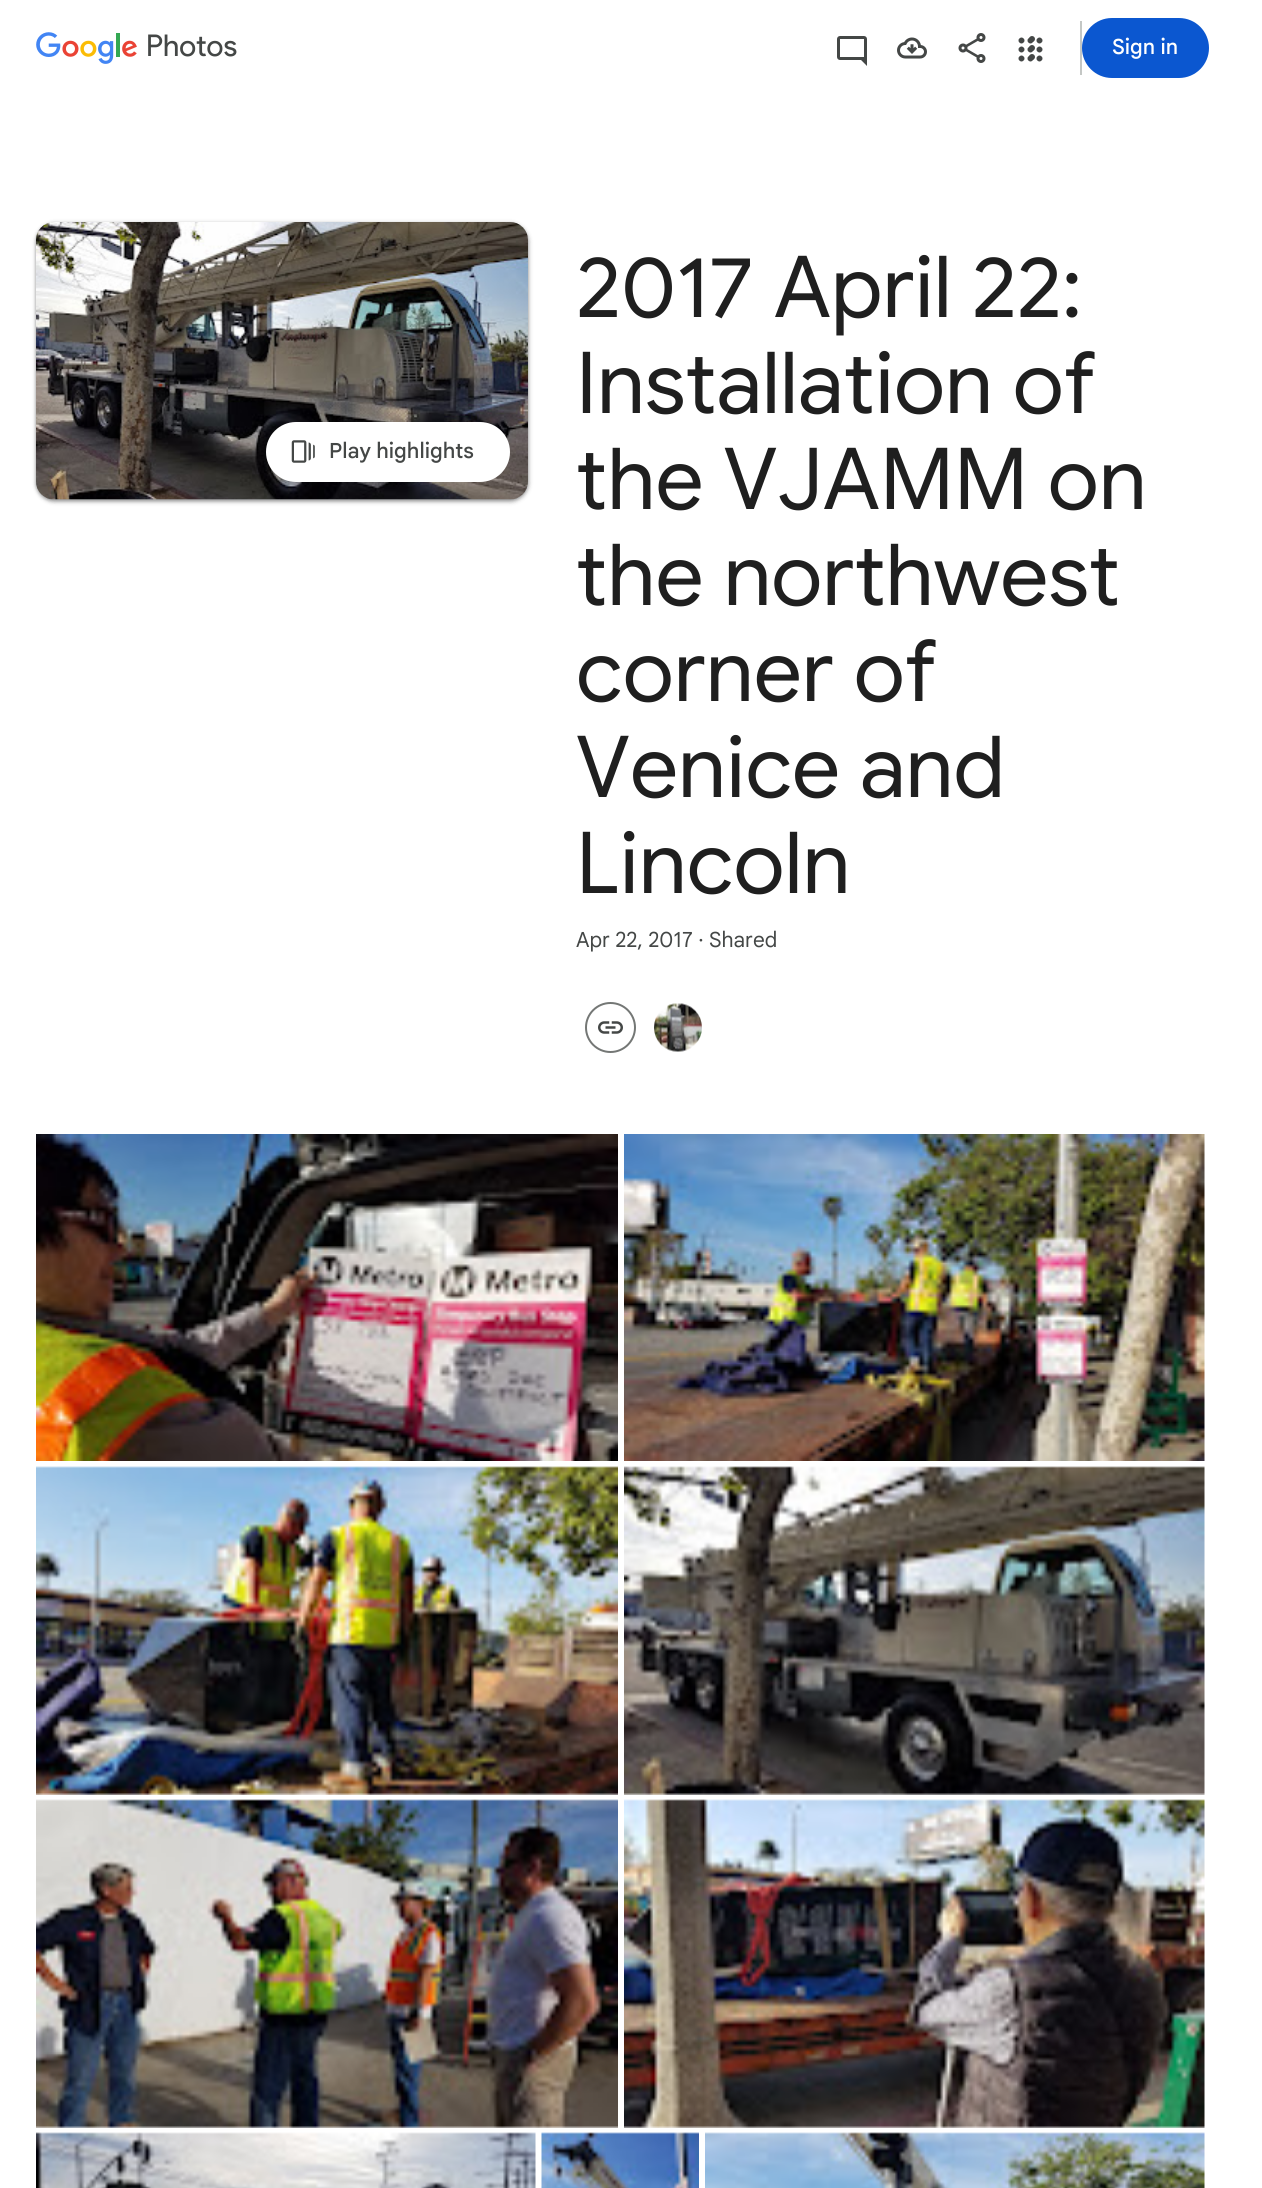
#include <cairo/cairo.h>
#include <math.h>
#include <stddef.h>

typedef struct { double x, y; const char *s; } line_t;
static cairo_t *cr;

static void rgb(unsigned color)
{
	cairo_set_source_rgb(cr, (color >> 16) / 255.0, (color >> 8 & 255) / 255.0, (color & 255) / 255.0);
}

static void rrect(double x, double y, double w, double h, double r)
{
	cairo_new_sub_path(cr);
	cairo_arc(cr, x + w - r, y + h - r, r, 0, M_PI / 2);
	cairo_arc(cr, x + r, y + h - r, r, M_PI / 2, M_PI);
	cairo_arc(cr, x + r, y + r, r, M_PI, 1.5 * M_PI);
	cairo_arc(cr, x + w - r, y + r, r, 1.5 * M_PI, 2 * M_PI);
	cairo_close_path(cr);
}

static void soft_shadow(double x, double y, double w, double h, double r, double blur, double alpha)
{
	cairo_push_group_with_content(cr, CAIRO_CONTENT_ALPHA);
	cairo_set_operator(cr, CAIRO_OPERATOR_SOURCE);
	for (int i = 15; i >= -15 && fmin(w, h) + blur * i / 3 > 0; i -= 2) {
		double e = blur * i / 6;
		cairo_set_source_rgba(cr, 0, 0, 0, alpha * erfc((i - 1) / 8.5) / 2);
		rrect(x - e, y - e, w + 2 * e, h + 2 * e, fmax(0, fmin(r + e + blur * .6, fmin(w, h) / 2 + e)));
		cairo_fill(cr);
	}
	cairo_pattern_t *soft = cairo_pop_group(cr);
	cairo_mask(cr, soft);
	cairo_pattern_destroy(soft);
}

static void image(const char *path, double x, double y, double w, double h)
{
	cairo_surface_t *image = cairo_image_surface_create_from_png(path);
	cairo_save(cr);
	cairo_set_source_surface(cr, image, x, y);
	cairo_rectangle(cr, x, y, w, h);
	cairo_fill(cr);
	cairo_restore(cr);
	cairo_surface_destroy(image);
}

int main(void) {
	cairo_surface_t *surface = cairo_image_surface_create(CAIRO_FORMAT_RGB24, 1262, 2188);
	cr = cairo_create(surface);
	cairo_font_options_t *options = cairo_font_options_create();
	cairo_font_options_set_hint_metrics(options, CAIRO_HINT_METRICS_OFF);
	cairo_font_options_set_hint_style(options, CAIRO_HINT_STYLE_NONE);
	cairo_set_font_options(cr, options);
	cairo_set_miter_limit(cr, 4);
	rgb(0xffffff);
	cairo_paint(cr);
	image("img/1.png", 36, 32, 101, 32);
	image("img/2.png", 837, 36, 30, 30);
	image("img/3.png", 897, 37, 30, 22);
	image("img/4.png", 958, 33, 28, 30);
	image("img/5.png", 1029, 36, 6, 24);
	rgb(0xc4c7c5);
	cairo_rectangle(cr, 1080, 21, 2, 54);
	cairo_fill(cr);
	rgb(0xf8fafd);
	rrect(36, 222, 492, 278, 18);
	cairo_fill(cr);
	rgb(0x000000);
	soft_shadow(35, 222, 495, 281, 20, 2, 0.15);
	soft_shadow(36, 224, 492, 277, 18, 1.5, 0.3);
	image("img/6.png", 36, 222, 492, 278);
	rgb(0xffffff);
	rrect(266, 422, 244, 60, 30);
	cairo_fill(cr);
	image("img/7.png", 291, 440, 24, 23);
	cairo_arc(cr, 610.5, 1027.5, 24.5, 0, 2 * M_PI);
	rgb(0x747775);
	cairo_stroke(cr);
	image("img/8.png", 598, 1021, 25, 13);
	image("img/9.png", 654, 1003, 48, 49);
	image("img/10.png", 36, 1134, 582, 327);
	image("img/11.png", 624, 1134, 581, 327);
	image("img/12.png", 36, 1466, 582, 329);
	image("img/13.png", 624, 1466, 581, 329);
	image("img/14.png", 36, 1799, 582, 329);
	image("img/15.png", 624, 1799, 581, 329);
	image("img/16.png", 36, 2132, 500, 56);
	image("img/17.png", 541, 2132, 158, 56);
	image("img/18.png", 705, 2132, 500, 56);
	image("img/19.png", 1018, 37, 25, 25);
	rgb(0x0b57d0);
	rrect(1082, 18, 127, 60, 30);
	cairo_fill(cr);
	cairo_select_font_face(cr, "Product Sans", CAIRO_FONT_SLANT_NORMAL, CAIRO_FONT_WEIGHT_NORMAL);
	cairo_set_font_size(cr, 30);
	rgb(0x444746);
	cairo_move_to(cr, 146, 56);
	cairo_show_text(cr, "Photos");
	cairo_select_font_face(cr, "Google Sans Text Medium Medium", CAIRO_FONT_SLANT_NORMAL, CAIRO_FONT_WEIGHT_NORMAL);
	cairo_set_font_size(cr, 21);
	cairo_move_to(cr, 329, 458);
	cairo_show_text(cr, "Play highlights");
	cairo_select_font_face(cr, "Google Sans", CAIRO_FONT_SLANT_NORMAL, CAIRO_FONT_WEIGHT_NORMAL);
	cairo_set_font_size(cr, 85.5);
	rgb(0x1f1f1f);
	{
		static const line_t items[] = {
			{576, 317, "2017 April 22:"},
			{576, 413, "Installation of"},
			{576, 509, "the VJAMM on"},
			{576, 605, "the northwest"},
			{576, 701, "corner of"},
			{576, 797, "Venice and"},
			{576, 893, "Lincoln"},
		};
		for (size_t i = 0; i < sizeof items / sizeof *items; i++) {
			cairo_move_to(cr, items[i].x, items[i].y);
			cairo_show_text(cr, items[i].s);
		}
	}
	cairo_select_font_face(cr, "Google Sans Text", CAIRO_FONT_SLANT_NORMAL, CAIRO_FONT_WEIGHT_NORMAL);
	cairo_set_font_size(cr, 21);
	rgb(0x444746);
	cairo_move_to(cr, 576, 947);
	cairo_show_text(cr, "Apr 22, 2017 · Shared");
	cairo_select_font_face(cr, "Google Sans Text Medium Medium", CAIRO_FONT_SLANT_NORMAL, CAIRO_FONT_WEIGHT_NORMAL);
	rgb(0xffffff);
	cairo_move_to(cr, 1112, 54);
	cairo_show_text(cr, "Sign in");
	cairo_surface_write_to_png(surface, "page.png");
	cairo_font_options_destroy(options);
	cairo_destroy(cr);
	cairo_surface_destroy(surface);
	return 0;
}
